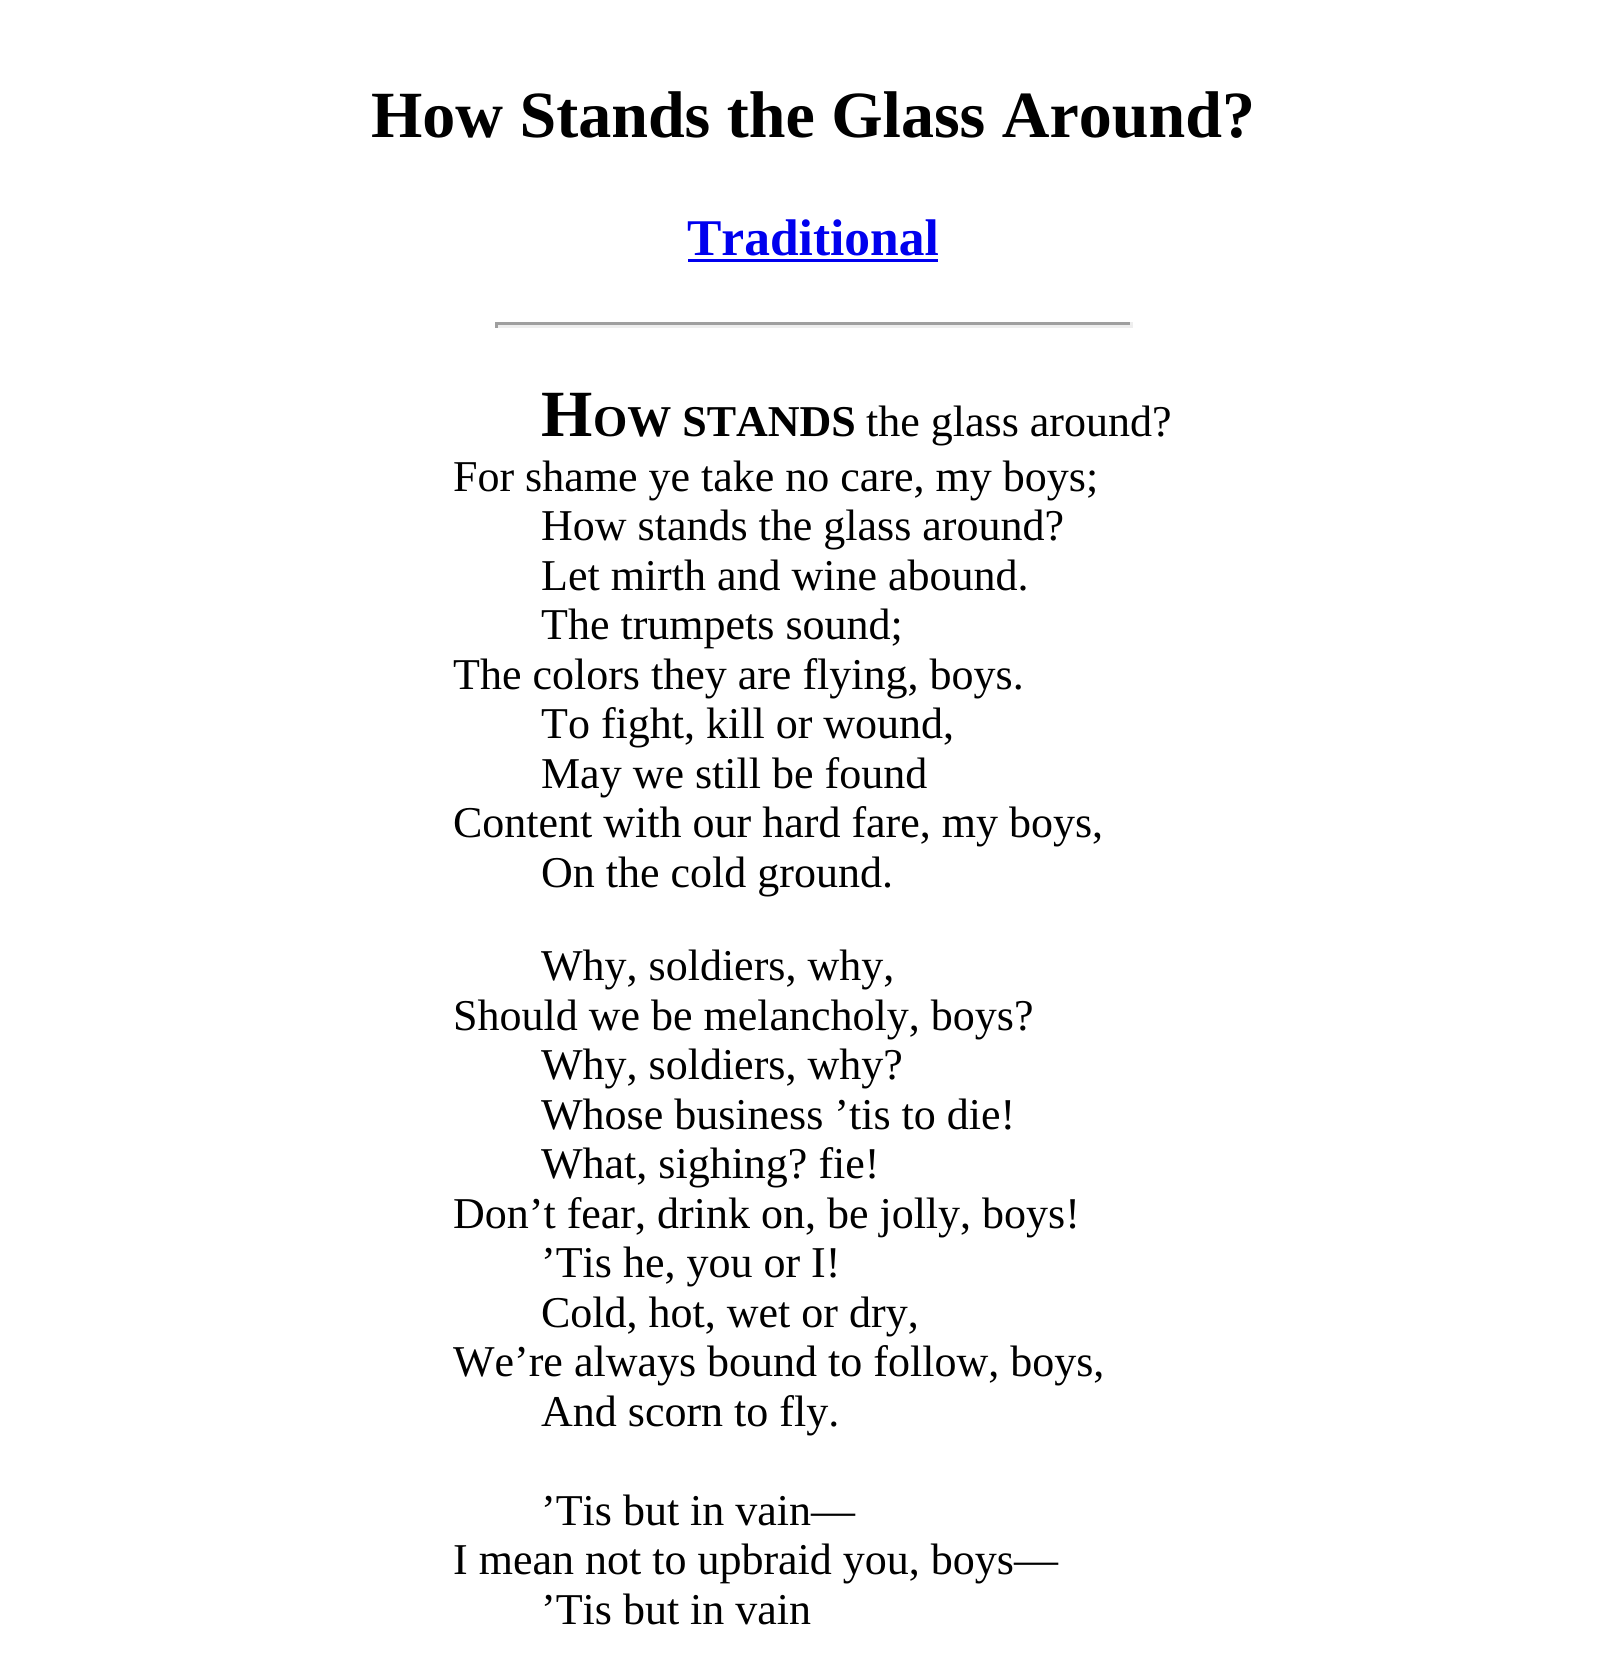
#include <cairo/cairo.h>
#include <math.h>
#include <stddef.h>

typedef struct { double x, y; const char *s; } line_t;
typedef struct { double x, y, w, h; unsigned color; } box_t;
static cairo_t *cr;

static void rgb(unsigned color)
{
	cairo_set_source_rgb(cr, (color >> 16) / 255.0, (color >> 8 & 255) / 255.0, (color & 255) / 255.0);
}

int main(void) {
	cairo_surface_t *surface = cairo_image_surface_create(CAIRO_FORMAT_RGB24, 1624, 1654);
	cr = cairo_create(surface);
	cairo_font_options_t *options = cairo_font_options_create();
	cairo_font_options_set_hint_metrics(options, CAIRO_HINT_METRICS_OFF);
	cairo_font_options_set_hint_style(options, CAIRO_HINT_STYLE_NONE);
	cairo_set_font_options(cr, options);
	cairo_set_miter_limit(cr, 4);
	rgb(0xffffff);
	cairo_paint(cr);
	{
		static const box_t items[] = {
			{688, 259, 250, 3, 0x0000ee},
			{495, 322, 638, 3, 0x9f9f9f},
			{1130, 322, 3, 6, 0xeeeeee},
			{495, 325, 638, 3, 0xeeeeee},
			{495, 322, 3, 6, 0x9f9f9f},
		};
		for (size_t i = 0; i < sizeof items / sizeof *items; i++) {
			rgb(items[i].color);
			cairo_rectangle(cr, items[i].x, items[i].y, items[i].w, items[i].h);
			cairo_fill(cr);
		}
	}
	cairo_select_font_face(cr, "Liberation Serif", CAIRO_FONT_SLANT_NORMAL, CAIRO_FONT_WEIGHT_BOLD);
	cairo_set_font_size(cr, 66);
	rgb(0x000000);
	cairo_move_to(cr, 371, 137);
	cairo_show_text(cr, "How Stands the Glass Around?");
	cairo_set_font_size(cr, 51.5);
	rgb(0x0000ee);
	cairo_move_to(cr, 687, 255);
	cairo_show_text(cr, "Traditional");
	cairo_set_font_size(cr, 66);
	rgb(0x000000);
	cairo_move_to(cr, 541, 436);
	cairo_show_text(cr, "H");
	cairo_set_font_size(cr, 44);
	cairo_move_to(cr, 593, 436);
	cairo_show_text(cr, "OW STANDS");
	cairo_select_font_face(cr, "Liberation Serif", CAIRO_FONT_SLANT_NORMAL, CAIRO_FONT_WEIGHT_NORMAL);
	{
		static const line_t items[] = {
			{866, 436, "the glass around?"},
			{453, 491, "For shame ye take no care, my boys;"},
			{541, 540, "How stands the glass around?"},
			{541, 590, "Let mirth and wine abound."},
			{541, 639, "The trumpets sound;"},
			{453, 689, "The colors they are flying, boys."},
			{541, 738, "To fight, kill or wound,"},
			{541, 788, "May we still be found"},
			{453, 837, "Content with our hard fare, my boys,"},
			{541, 887, "On the cold ground."},
			{541, 980, "Why, soldiers, why,"},
			{453, 1030, "Should we be melancholy, boys?"},
			{541, 1079, "Why, soldiers, why?"},
			{541, 1129, "Whose business ’tis to die!"},
			{541, 1178, "What, sighing? fie!"},
			{453, 1228, "Don’t fear, drink on, be jolly, boys!"},
			{541, 1277, "’Tis he, you or I!"},
			{541, 1327, "Cold, hot, wet or dry,"},
			{453, 1376, "We’re always bound to follow, boys,"},
			{541, 1426, "And scorn to fly."},
			{541, 1525, "’Tis but in vain—"},
			{453, 1574, "I mean not to upbraid you, boys—"},
			{541, 1624, "’Tis but in vain"},
		};
		for (size_t i = 0; i < sizeof items / sizeof *items; i++) {
			cairo_move_to(cr, items[i].x, items[i].y);
			cairo_show_text(cr, items[i].s);
		}
	}
	cairo_surface_write_to_png(surface, "page.png");
	cairo_font_options_destroy(options);
	cairo_destroy(cr);
	cairo_surface_destroy(surface);
	return 0;
}
